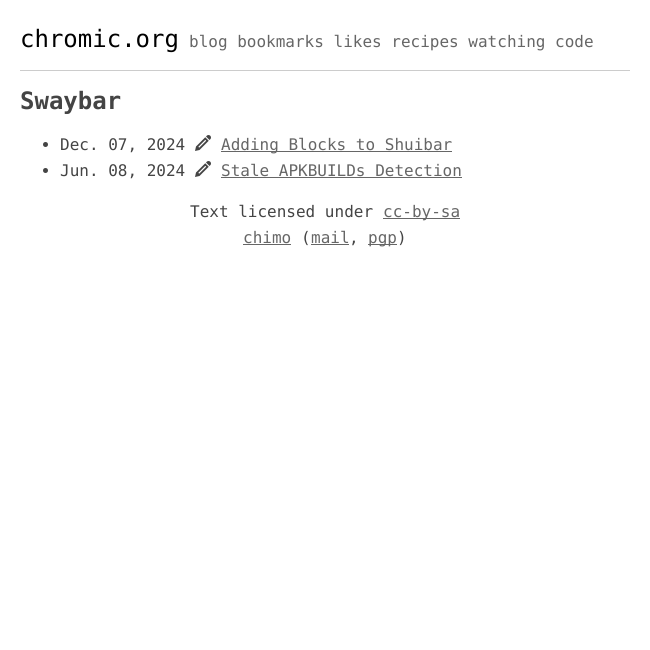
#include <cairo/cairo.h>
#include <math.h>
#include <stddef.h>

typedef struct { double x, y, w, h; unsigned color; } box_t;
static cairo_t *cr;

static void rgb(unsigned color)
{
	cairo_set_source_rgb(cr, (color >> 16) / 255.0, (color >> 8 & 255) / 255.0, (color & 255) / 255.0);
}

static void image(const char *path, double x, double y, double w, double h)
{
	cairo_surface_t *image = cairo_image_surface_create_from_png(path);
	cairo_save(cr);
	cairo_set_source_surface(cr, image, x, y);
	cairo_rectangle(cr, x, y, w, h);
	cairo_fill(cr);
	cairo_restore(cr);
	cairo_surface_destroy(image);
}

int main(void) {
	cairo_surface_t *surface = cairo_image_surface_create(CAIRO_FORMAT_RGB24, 650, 650);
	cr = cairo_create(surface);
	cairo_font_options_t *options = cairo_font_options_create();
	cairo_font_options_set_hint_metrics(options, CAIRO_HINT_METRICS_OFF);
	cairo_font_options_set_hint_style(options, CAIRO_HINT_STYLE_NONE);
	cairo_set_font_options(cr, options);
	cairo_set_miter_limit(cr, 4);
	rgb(0xffffff);
	cairo_paint(cr);
	rgb(0xcccccc);
	cairo_rectangle(cr, 20, 70, 610, 1);
	cairo_fill(cr);
	rgb(0x444444);
	cairo_arc(cr, 45.5, 144.5, 2.5, 0, 2 * M_PI);
	cairo_fill(cr);
	image("img/1.png", 195, 135, 16, 16);
	rgb(0x666666);
	cairo_rectangle(cr, 221, 151, 231, 1);
	cairo_fill(cr);
	rgb(0x444444);
	cairo_arc(cr, 45.5, 170.5, 2.5, 0, 2 * M_PI);
	cairo_fill(cr);
	image("img/1.png", 195, 161, 16, 16);
	{
		static const box_t items[] = {
			{221, 177, 241, 1, 0x666666},
			{383, 218, 77, 1, 0x666666},
			{243, 244, 48, 1, 0x666666},
			{311, 244, 38, 1, 0x666666},
			{368, 244, 29, 1, 0x666666},
		};
		for (size_t i = 0; i < sizeof items / sizeof *items; i++) {
			rgb(items[i].color);
			cairo_rectangle(cr, items[i].x, items[i].y, items[i].w, items[i].h);
			cairo_fill(cr);
		}
	}
	cairo_select_font_face(cr, "DejaVu Sans Mono", CAIRO_FONT_SLANT_NORMAL, CAIRO_FONT_WEIGHT_NORMAL);
	cairo_set_font_size(cr, 24);
	rgb(0x000000);
	cairo_move_to(cr, 20, 47);
	cairo_show_text(cr, "chromic.org");
	cairo_set_font_size(cr, 16);
	rgb(0x666666);
	cairo_move_to(cr, 189, 47);
	cairo_show_text(cr, "blog bookmarks likes recipes watching code");
	cairo_select_font_face(cr, "DejaVu Sans Mono", CAIRO_FONT_SLANT_NORMAL, CAIRO_FONT_WEIGHT_BOLD);
	cairo_set_font_size(cr, 24);
	rgb(0x444444);
	cairo_move_to(cr, 20, 109);
	cairo_show_text(cr, "Swaybar");
	cairo_select_font_face(cr, "DejaVu Sans Mono", CAIRO_FONT_SLANT_NORMAL, CAIRO_FONT_WEIGHT_NORMAL);
	cairo_set_font_size(cr, 16);
	cairo_move_to(cr, 60, 150);
	cairo_show_text(cr, "Dec. 07, 2024");
	rgb(0x666666);
	cairo_move_to(cr, 221, 150);
	cairo_show_text(cr, "Adding Blocks to Shuibar");
	rgb(0x444444);
	cairo_move_to(cr, 60, 176);
	cairo_show_text(cr, "Jun. 08, 2024");
	rgb(0x666666);
	cairo_move_to(cr, 221, 176);
	cairo_show_text(cr, "Stale APKBUILDs Detection");
	rgb(0x444444);
	cairo_move_to(cr, 190, 217);
	cairo_show_text(cr, "Text licensed under");
	rgb(0x666666);
	cairo_move_to(cr, 383, 217);
	cairo_show_text(cr, "cc-by-sa");
	cairo_move_to(cr, 243, 243);
	cairo_show_text(cr, "chimo");
	rgb(0x444444);
	cairo_move_to(cr, 301, 243);
	cairo_show_text(cr, "(");
	rgb(0x666666);
	cairo_move_to(cr, 311, 243);
	cairo_show_text(cr, "mail");
	rgb(0x444444);
	cairo_move_to(cr, 349, 243);
	cairo_show_text(cr, ",");
	rgb(0x666666);
	cairo_move_to(cr, 368, 243);
	cairo_show_text(cr, "pgp");
	rgb(0x444444);
	cairo_move_to(cr, 397, 243);
	cairo_show_text(cr, ")");
	cairo_surface_write_to_png(surface, "page.png");
	cairo_font_options_destroy(options);
	cairo_destroy(cr);
	cairo_surface_destroy(surface);
	return 0;
}
